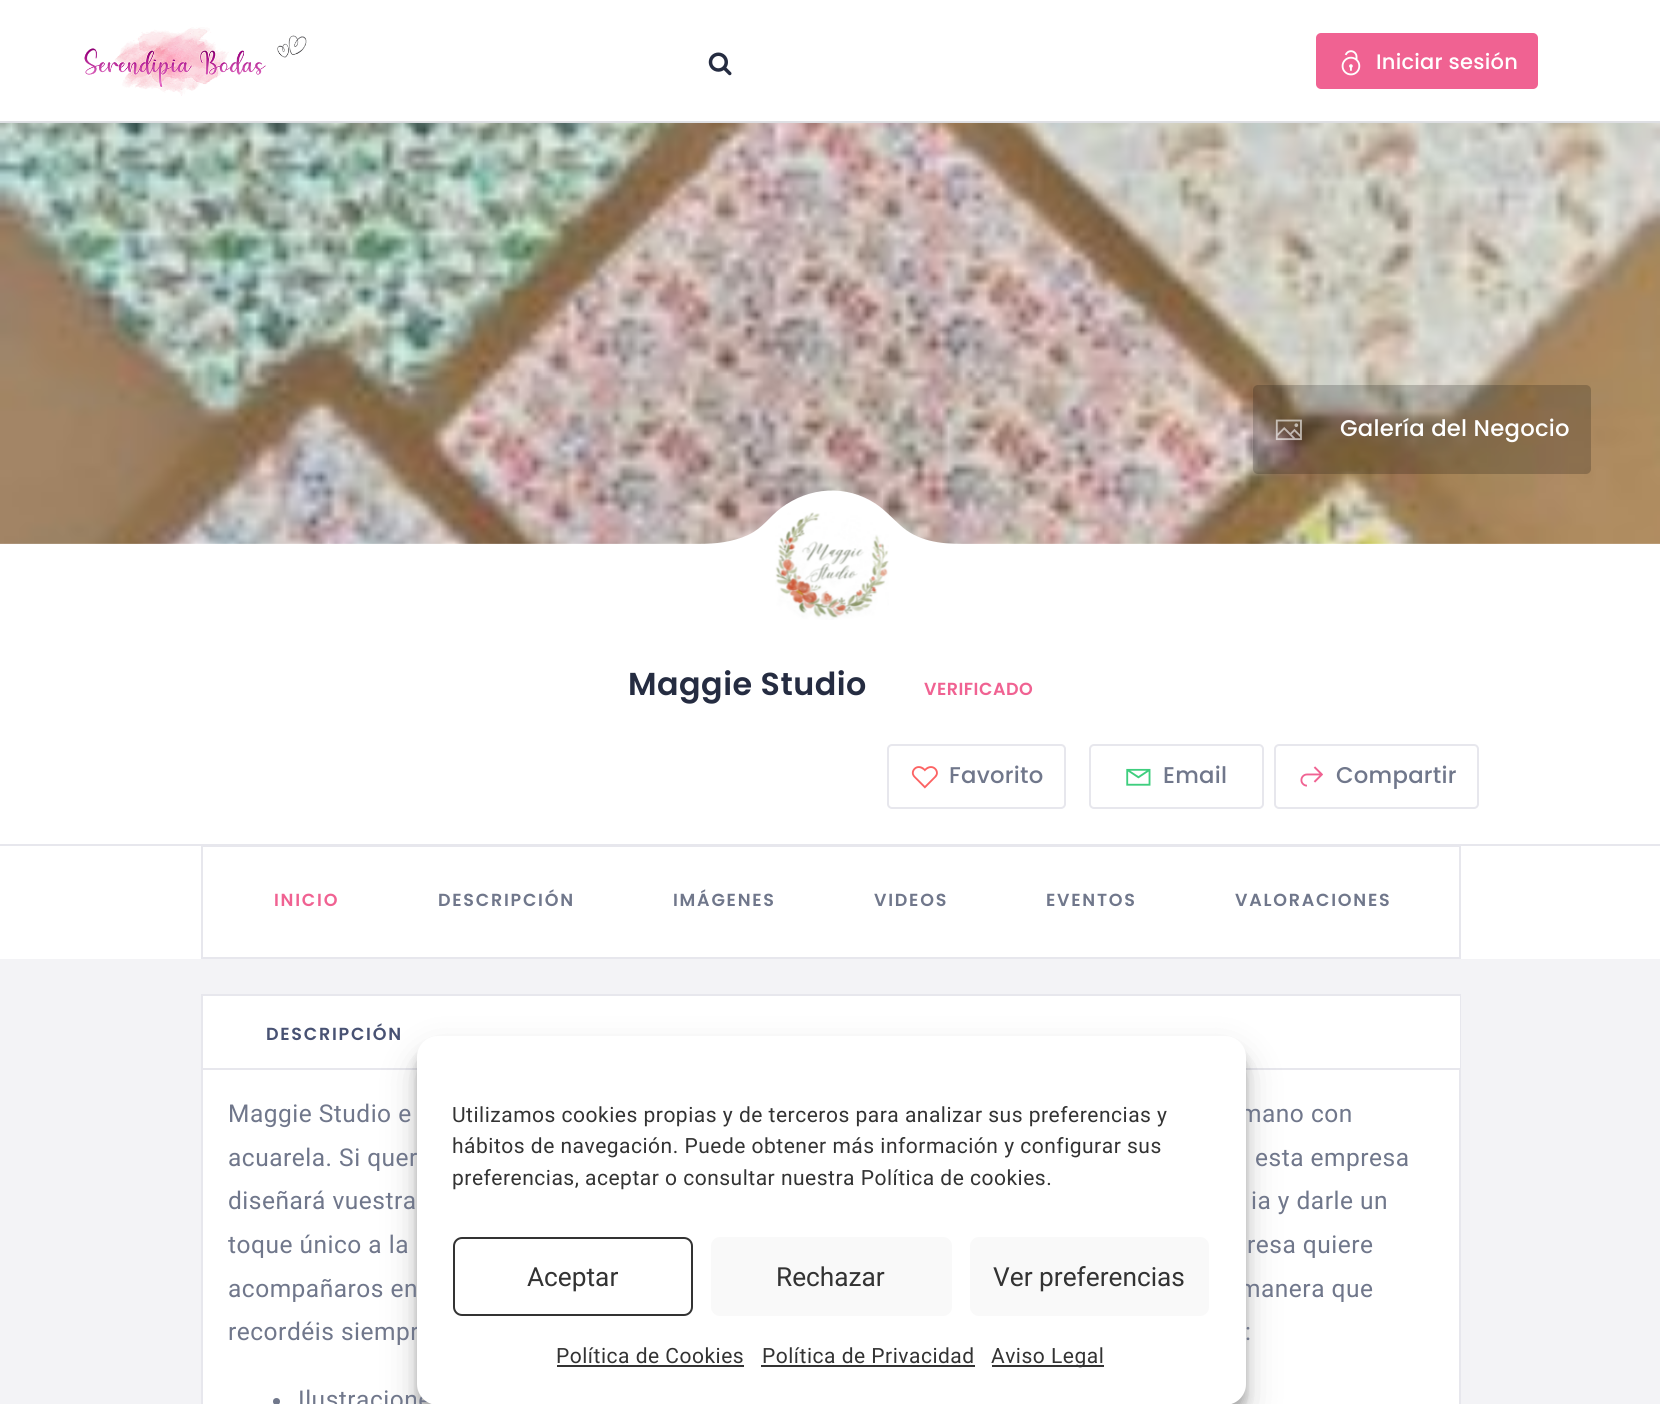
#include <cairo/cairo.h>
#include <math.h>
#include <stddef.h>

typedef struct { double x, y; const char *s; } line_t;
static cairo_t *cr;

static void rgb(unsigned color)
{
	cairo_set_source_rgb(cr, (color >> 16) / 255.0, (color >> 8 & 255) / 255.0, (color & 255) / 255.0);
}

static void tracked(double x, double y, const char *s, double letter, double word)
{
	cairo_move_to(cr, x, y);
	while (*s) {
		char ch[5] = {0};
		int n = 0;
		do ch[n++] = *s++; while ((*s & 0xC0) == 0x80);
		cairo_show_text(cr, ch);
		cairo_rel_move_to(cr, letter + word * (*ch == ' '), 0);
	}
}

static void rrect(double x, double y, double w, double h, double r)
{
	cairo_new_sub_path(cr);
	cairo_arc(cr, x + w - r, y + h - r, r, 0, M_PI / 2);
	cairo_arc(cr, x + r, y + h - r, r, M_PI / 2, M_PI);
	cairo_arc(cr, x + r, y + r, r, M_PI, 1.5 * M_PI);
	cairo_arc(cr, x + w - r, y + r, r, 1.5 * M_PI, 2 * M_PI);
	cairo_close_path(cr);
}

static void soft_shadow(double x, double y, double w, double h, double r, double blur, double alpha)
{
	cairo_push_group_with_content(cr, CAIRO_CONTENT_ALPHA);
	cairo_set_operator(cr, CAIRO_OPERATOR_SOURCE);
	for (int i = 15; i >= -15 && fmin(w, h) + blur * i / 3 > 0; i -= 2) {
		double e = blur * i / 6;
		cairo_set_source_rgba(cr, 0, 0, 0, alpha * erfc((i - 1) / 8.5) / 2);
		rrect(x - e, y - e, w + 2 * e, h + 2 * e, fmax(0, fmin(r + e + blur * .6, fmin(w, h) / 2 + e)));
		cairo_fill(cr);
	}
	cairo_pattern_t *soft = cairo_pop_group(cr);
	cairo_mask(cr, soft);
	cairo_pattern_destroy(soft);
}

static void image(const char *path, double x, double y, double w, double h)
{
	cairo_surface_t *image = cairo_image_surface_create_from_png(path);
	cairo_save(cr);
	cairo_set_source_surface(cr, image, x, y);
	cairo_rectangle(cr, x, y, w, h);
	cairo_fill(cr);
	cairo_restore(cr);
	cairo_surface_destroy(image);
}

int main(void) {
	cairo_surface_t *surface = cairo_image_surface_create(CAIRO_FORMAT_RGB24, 1660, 1404);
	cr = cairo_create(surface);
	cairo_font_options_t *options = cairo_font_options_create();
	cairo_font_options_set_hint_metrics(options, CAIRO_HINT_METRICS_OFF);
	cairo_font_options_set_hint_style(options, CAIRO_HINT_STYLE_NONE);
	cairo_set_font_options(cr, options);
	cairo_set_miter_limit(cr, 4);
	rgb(0xffffff);
	cairo_paint(cr);
	image("img/1.png", 84, 27, 223, 69);
	image("img/2.png", 708, 52, 24, 24);
	rgb(0xf06292);
	rrect(1316, 33, 222, 56, 5);
	cairo_fill(cr);
	image("img/3.png", 1341, 50, 20, 26);
	rgb(0xdedfe3);
	cairo_rectangle(cr, 0, 121, 1660, 2);
	cairo_fill(cr);
	image("img/4.png", 0, 123, 1660, 421);
	cairo_set_source_rgba(cr, 0, 0, 0, 0.2);
	rrect(1253, 385, 338, 89, 5);
	cairo_fill(cr);
	image("img/5.png", 1275, 419, 27, 22);
	cairo_rectangle(cr, 202, 846, 1258, 112);
	rgb(0xe7e7ed);
	cairo_stroke(cr);
	cairo_rectangle(cr, 0, 844, 1660, 2);
	cairo_fill(cr);
	rgb(0xffffff);
	cairo_new_path(cr);
	cairo_move_to(cr, 900, 525);
	cairo_curve_to(cr, 892, 518, 885, 510, 876, 504);
	cairo_curve_to(cr, 846, 484, 809, 487, 781, 508);
	cairo_curve_to(cr, 769, 517, 763, 528, 748, 535);
	cairo_curve_to(cr, 733, 542, 715, 544, 699, 544);
	cairo_line_to(cr, 699, 585);
	cairo_line_to(cr, 963, 585);
	cairo_line_to(cr, 963, 544);
	cairo_curve_to(cr, 940, 544, 917, 541, 900, 525);
	cairo_close_path(cr);
	cairo_fill(cr);
	image("img/6.png", 775, 512, 114, 108);
	rrect(888, 745, 177, 63, 4);
	rgb(0xe7e7ed);
	cairo_stroke(cr);
	image("img/7.png", 911, 766, 27, 23);
	rrect(1090, 745, 173, 63, 4);
	cairo_stroke(cr);
	image("img/8.png", 1126, 768, 25, 18);
	rrect(1275, 745, 203, 63, 4);
	cairo_stroke(cr);
	image("img/9.png", 1300, 766, 23, 21);
	rgb(0xf3f3f6);
	cairo_rectangle(cr, 0, 959, 1660, 445);
	cairo_fill(cr);
	rgb(0xffffff);
	cairo_rectangle(cr, 203, 1070, 1256, 334);
	cairo_fill(cr);
	cairo_rectangle(cr, 202, 995, 1258, 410);
	rgb(0xe7e7ed);
	cairo_stroke(cr);
	rgb(0xffffff);
	cairo_rectangle(cr, 203, 996, 1257, 72);
	cairo_fill(cr);
	rgb(0xe7e7ed);
	cairo_rectangle(cr, 203, 1068, 1257, 2);
	cairo_fill(cr);
	rgb(0x70778b);
	cairo_arc(cr, 276.5, 1401.5, 3.5, 0, 2 * M_PI);
	cairo_fill(cr);
	rgb(0x000000);
	soft_shadow(417, 1047, 829, 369, 21, 5, 0.23);
	soft_shadow(417, 1054, 829, 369, 21, 17.5, 0.19);
	cairo_select_font_face(cr, "Poppins Medium", CAIRO_FONT_SLANT_NORMAL, CAIRO_FONT_WEIGHT_NORMAL);
	cairo_set_font_size(cr, 21);
	rgb(0xffffff);
	tracked(1376, 69, "Iniciar sesión", 0.25, 0);
	cairo_set_font_size(cr, 22.75);
	tracked(1340, 436, "Galería del Negocio", 0.25, 0);
	cairo_select_font_face(cr, "Poppins SemiBold", CAIRO_FONT_SLANT_NORMAL, CAIRO_FONT_WEIGHT_NORMAL);
	cairo_set_font_size(cr, 31.75);
	rgb(0x252c41);
	tracked(628, 695, "Maggie Studio", 0.5, 0);
	cairo_set_font_size(cr, 17.5);
	rgb(0xf06292);
	tracked(924, 695, "VERIFICADO", 0.5, 0);
	cairo_select_font_face(cr, "Poppins Medium", CAIRO_FONT_SLANT_NORMAL, CAIRO_FONT_WEIGHT_NORMAL);
	cairo_set_font_size(cr, 22.75);
	rgb(0x70778b);
	{
		static const line_t items[] = {
			{949, 783, "Favorito"},
			{1163, 783, "Email"},
			{1336, 783, "Compartir"},
		};
		for (size_t i = 0; i < sizeof items / sizeof *items; i++) {
			tracked(items[i].x, items[i].y, items[i].s, 0.25, 0);
		}
	}
	cairo_select_font_face(cr, "Poppins SemiBold", CAIRO_FONT_SLANT_NORMAL, CAIRO_FONT_WEIGHT_NORMAL);
	cairo_set_font_size(cr, 17.5);
	rgb(0xf06292);
	tracked(274, 906, "INICIO", 1.75, 0);
	rgb(0x70778b);
	{
		static const line_t items[] = {
			{438, 906, "DESCRIPCIÓN"},
			{673, 906, "IMÁGENES"},
			{874, 906, "VIDEOS"},
			{1046, 906, "EVENTOS"},
			{1235, 906, "VALORACIONES"},
		};
		for (size_t i = 0; i < sizeof items / sizeof *items; i++) {
			tracked(items[i].x, items[i].y, items[i].s, 1.75, 0);
		}
	}
	rgb(0x485273);
	tracked(266, 1040, "DESCRIPCIÓN", 1.75, 0);
	cairo_select_font_face(cr, "Roboto", CAIRO_FONT_SLANT_NORMAL, CAIRO_FONT_WEIGHT_NORMAL);
	cairo_set_font_size(cr, 24.5);
	rgb(0x70778b);
	{
		static const line_t items[] = {
			{228, 1122, "Maggie Studio e"},
			{1240, 1122, "mano con"},
			{228, 1166, "acuarela. Si quer"},
			{1255, 1166, "esta empresa"},
			{228, 1209, "diseñará vuestra"},
			{1251, 1209, "ia y darle un"},
			{228, 1253, "toque único a la"},
			{1247, 1253, "resa quiere"},
			{228, 1297, "acompañaros en"},
			{1239, 1297, "manera que"},
			{228, 1340, "recordéis siempr"},
			{1245, 1340, ":"},
			{298, 1408, "Ilustracione"},
		};
		for (size_t i = 0; i < sizeof items / sizeof *items; i++) {
			tracked(items[i].x, items[i].y, items[i].s, 0.5, 0);
		}
	}
	rgb(0xffffff);
	rrect(418, 1037, 827, 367, 20);
	cairo_fill_preserve(cr);
	cairo_stroke(cr);
	cairo_set_font_size(cr, 21);
	rgb(0x333333);
	{
		static const line_t items[] = {
			{452, 1122, "Utilizamos cookies propias y de terceros para analizar sus preferencias y"},
			{452, 1153, "hábitos de navegación. Puede obtener más información y configurar sus"},
			{452, 1185, "preferencias, aceptar o consultar nuestra Política de cookies."},
		};
		for (size_t i = 0; i < sizeof items / sizeof *items; i++) {
			tracked(items[i].x, items[i].y, items[i].s, 0.5, 0);
		}
	}
	rrect(454, 1238, 238, 77, 8);
	cairo_stroke(cr);
	cairo_set_font_size(cr, 26.25);
	cairo_move_to(cr, 527, 1286);
	cairo_show_text(cr, "Aceptar");
	rgb(0xf9f9f9);
	rrect(711, 1237, 241, 79, 9);
	cairo_fill(cr);
	rgb(0x333333);
	cairo_move_to(cr, 776, 1286);
	cairo_show_text(cr, "Rechazar");
	rgb(0xf9f9f9);
	rrect(970, 1237, 239, 79, 9);
	cairo_fill(cr);
	rgb(0x333333);
	cairo_move_to(cr, 993, 1286);
	cairo_show_text(cr, "Ver preferencias");
	cairo_set_font_size(cr, 21);
	tracked(556, 1363, "Política de Cookies", 0.5, 0);
	cairo_rectangle(cr, 557, 1365, 187, 2);
	cairo_fill(cr);
	tracked(762, 1363, "Política de Privacidad", 0.5, 0);
	cairo_rectangle(cr, 761, 1365, 214, 2);
	cairo_fill(cr);
	cairo_rectangle(cr, 992, 1365, 112, 2);
	cairo_fill(cr);
	tracked(991, 1363, "Aviso Legal", 0.5, 0);
	cairo_surface_write_to_png(surface, "page.png");
	cairo_font_options_destroy(options);
	cairo_destroy(cr);
	cairo_surface_destroy(surface);
	return 0;
}
